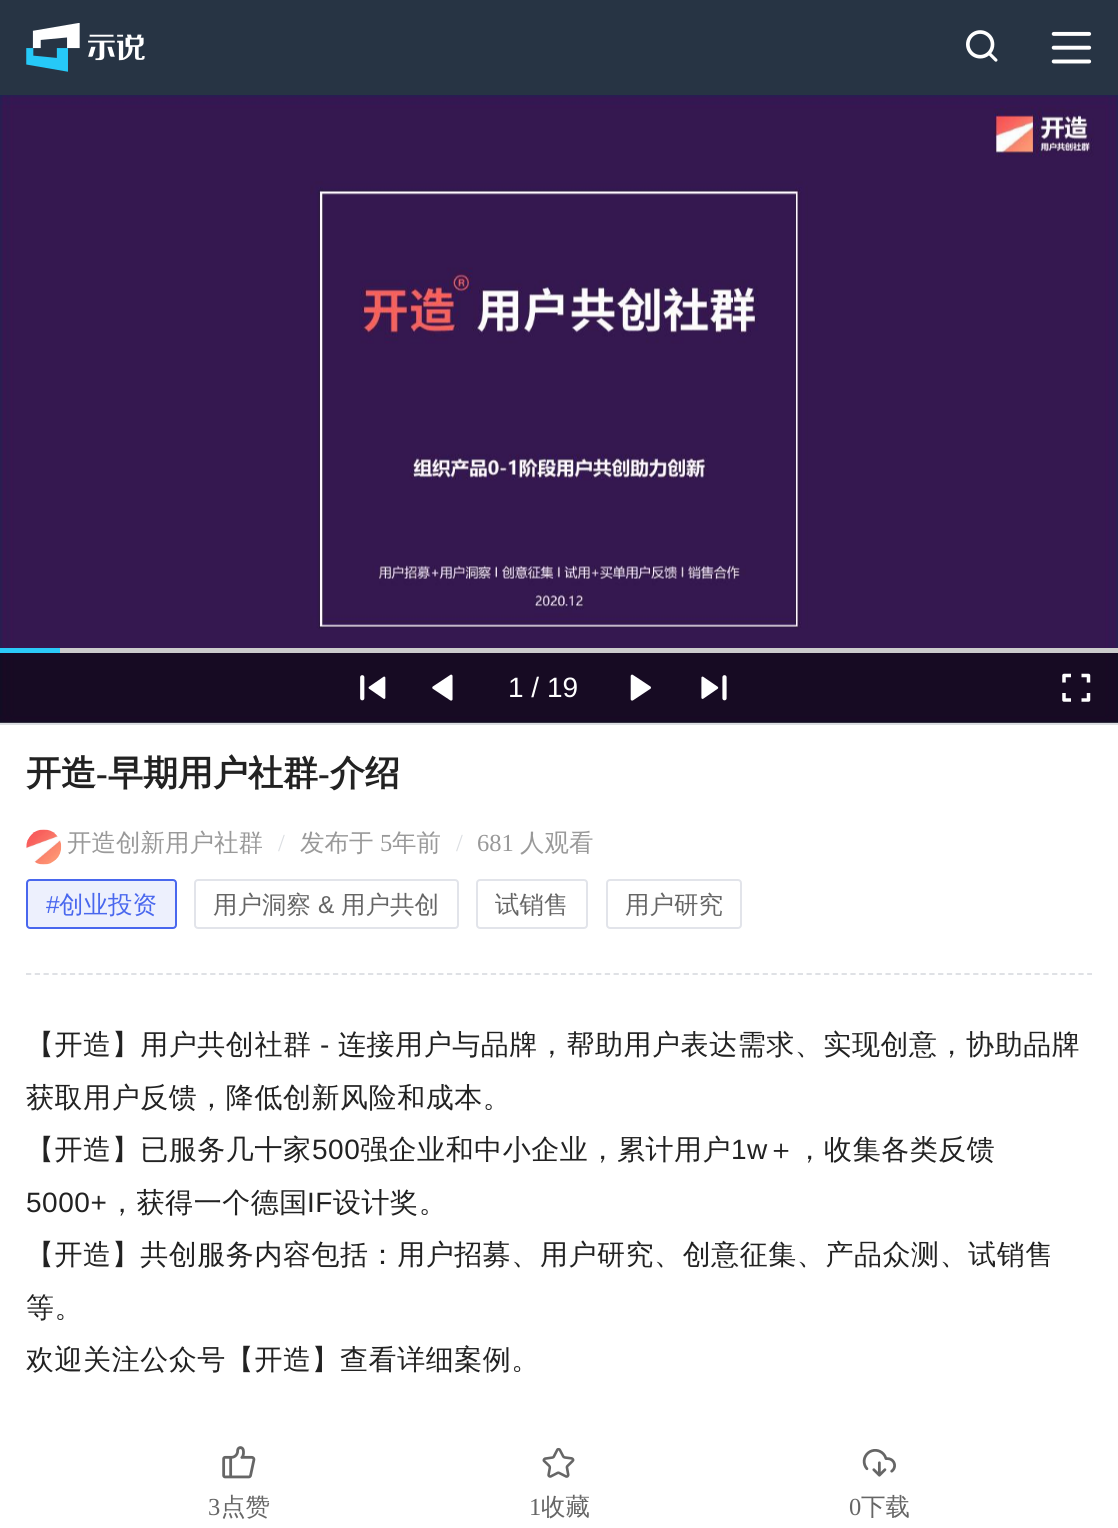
#include <cairo/cairo.h>
#include <math.h>
#include <stddef.h>

typedef struct { double x, y; const char *s; } line_t;
static cairo_t *cr;

static void rgb(unsigned color)
{
	cairo_set_source_rgb(cr, (color >> 16) / 255.0, (color >> 8 & 255) / 255.0, (color & 255) / 255.0);
}

static void tracked(double x, double y, const char *s, double letter, double word)
{
	cairo_move_to(cr, x, y);
	while (*s) {
		char ch[5] = {0};
		int n = 0;
		do ch[n++] = *s++; while ((*s & 0xC0) == 0x80);
		cairo_show_text(cr, ch);
		cairo_rel_move_to(cr, letter + word * (*ch == ' '), 0);
	}
}

static void rrect(double x, double y, double w, double h, double r)
{
	cairo_new_sub_path(cr);
	cairo_arc(cr, x + w - r, y + h - r, r, 0, M_PI / 2);
	cairo_arc(cr, x + r, y + h - r, r, M_PI / 2, M_PI);
	cairo_arc(cr, x + r, y + r, r, M_PI, 1.5 * M_PI);
	cairo_arc(cr, x + w - r, y + r, r, 1.5 * M_PI, 2 * M_PI);
	cairo_close_path(cr);
}

static void image(const char *path, double x, double y, double w, double h)
{
	cairo_surface_t *image = cairo_image_surface_create_from_png(path);
	cairo_save(cr);
	cairo_set_source_surface(cr, image, x, y);
	cairo_rectangle(cr, x, y, w, h);
	cairo_fill(cr);
	cairo_restore(cr);
	cairo_surface_destroy(image);
}

int main(void) {
	cairo_surface_t *surface = cairo_image_surface_create(CAIRO_FORMAT_RGB24, 1118, 1528);
	cr = cairo_create(surface);
	cairo_font_options_t *options = cairo_font_options_create();
	cairo_font_options_set_hint_metrics(options, CAIRO_HINT_METRICS_OFF);
	cairo_font_options_set_hint_style(options, CAIRO_HINT_STYLE_NONE);
	cairo_set_font_options(cr, options);
	cairo_set_miter_limit(cr, 4);
	rgb(0xffffff);
	cairo_paint(cr);
	rgb(0x273444);
	cairo_rectangle(cr, 0, 0, 1118, 95);
	cairo_fill(cr);
	image("img/1.png", 26, 23, 119, 49);
	image("img/2.png", 966, 30, 32, 32);
	image("img/3.png", 1051, 31, 41, 33);
	image("img/4.png", 0, 95, 1118, 628);
	rgb(0xcccccc);
	cairo_rectangle(cr, 60, 648, 1058, 5);
	cairo_fill(cr);
	rgb(0x2bcaf8);
	cairo_rectangle(cr, 0, 648, 60, 5);
	cairo_fill(cr);
	cairo_set_source_rgba(cr, 0, 0, 0, 0.56);
	cairo_rectangle(cr, 0, 653, 1118, 70);
	cairo_fill(cr);
	image("img/5.png", 360, 675, 26, 26);
	image("img/6.png", 432, 674, 21, 27);
	image("img/7.png", 630, 674, 21, 27);
	image("img/8.png", 701, 675, 26, 26);
	image("img/9.png", 1062, 673, 29, 29);
	rgb(0xdbdee2);
	cairo_rectangle(cr, 0, 723, 1118, 2);
	cairo_fill(cr);
	image("img/10.png", 26, 829, 36, 36);
	rgb(0xedf0fd);
	rrect(27, 880, 149, 48, 3);
	cairo_fill_preserve(cr);
	rgb(0x4967ee);
	cairo_stroke(cr);
	rrect(195, 880, 263, 48, 3);
	rgb(0xe2e4ea);
	cairo_stroke(cr);
	rrect(477, 880, 110, 48, 3);
	cairo_stroke(cr);
	rrect(607, 880, 134, 48, 3);
	cairo_stroke(cr);
	cairo_new_path(cr);
	cairo_move_to(cr, 26, 974);
	cairo_line_to(cr, 1092, 974);
	rgb(0xdbdee2);
	cairo_set_line_width(cr, 1.8);
	cairo_set_dash(cr, (double[]){5.25, 3.52}, 2, 0);
	cairo_stroke(cr);
	image("img/11.png", 222, 1446, 34, 33);
	image("img/12.png", 542, 1447, 33, 31);
	image("img/13.png", 862, 1449, 34, 28);
	cairo_select_font_face(cr, "Liberation Sans", CAIRO_FONT_SLANT_NORMAL, CAIRO_FONT_WEIGHT_NORMAL);
	cairo_set_font_size(cr, 28);
	rgb(0xffffff);
	cairo_move_to(cr, 508, 697);
	cairo_show_text(cr, "1 / 19");
	cairo_select_font_face(cr, "WenQuanYi Zen Hei", CAIRO_FONT_SLANT_NORMAL, CAIRO_FONT_WEIGHT_BOLD);
	cairo_set_font_size(cr, 35);
	rgb(0x222222);
	cairo_move_to(cr, 26, 785);
	cairo_show_text(cr, "开造");
	cairo_select_font_face(cr, "Liberation Serif", CAIRO_FONT_SLANT_NORMAL, CAIRO_FONT_WEIGHT_BOLD);
	cairo_move_to(cr, 96, 785);
	cairo_show_text(cr, "-");
	cairo_select_font_face(cr, "WenQuanYi Zen Hei", CAIRO_FONT_SLANT_NORMAL, CAIRO_FONT_WEIGHT_BOLD);
	cairo_move_to(cr, 108, 785);
	cairo_show_text(cr, "早期用户社群");
	cairo_select_font_face(cr, "Liberation Serif", CAIRO_FONT_SLANT_NORMAL, CAIRO_FONT_WEIGHT_BOLD);
	cairo_move_to(cr, 318, 785);
	cairo_show_text(cr, "-");
	cairo_select_font_face(cr, "WenQuanYi Zen Hei", CAIRO_FONT_SLANT_NORMAL, CAIRO_FONT_WEIGHT_BOLD);
	cairo_move_to(cr, 330, 785);
	cairo_show_text(cr, "介绍");
	cairo_select_font_face(cr, "WenQuanYi Zen Hei Medium", CAIRO_FONT_SLANT_NORMAL, CAIRO_FONT_WEIGHT_NORMAL);
	cairo_set_font_size(cr, 24.5);
	rgb(0x999999);
	cairo_move_to(cr, 67, 851);
	cairo_show_text(cr, "开造创新用户社群");
	cairo_select_font_face(cr, "Liberation Serif", CAIRO_FONT_SLANT_NORMAL, CAIRO_FONT_WEIGHT_NORMAL);
	rgb(0xdbdee2);
	cairo_move_to(cr, 278, 851);
	cairo_show_text(cr, "/");
	cairo_select_font_face(cr, "WenQuanYi Zen Hei Medium", CAIRO_FONT_SLANT_NORMAL, CAIRO_FONT_WEIGHT_NORMAL);
	rgb(0x999999);
	cairo_move_to(cr, 300, 851);
	cairo_show_text(cr, "发布于");
	cairo_select_font_face(cr, "Liberation Serif", CAIRO_FONT_SLANT_NORMAL, CAIRO_FONT_WEIGHT_NORMAL);
	cairo_move_to(cr, 380, 851);
	cairo_show_text(cr, "5");
	cairo_select_font_face(cr, "WenQuanYi Zen Hei Medium", CAIRO_FONT_SLANT_NORMAL, CAIRO_FONT_WEIGHT_NORMAL);
	cairo_move_to(cr, 392, 851);
	cairo_show_text(cr, "年前");
	cairo_select_font_face(cr, "Liberation Serif", CAIRO_FONT_SLANT_NORMAL, CAIRO_FONT_WEIGHT_NORMAL);
	rgb(0xdbdee2);
	cairo_move_to(cr, 456, 851);
	cairo_show_text(cr, "/");
	rgb(0x999999);
	cairo_move_to(cr, 477, 851);
	cairo_show_text(cr, "681");
	cairo_select_font_face(cr, "WenQuanYi Zen Hei Medium", CAIRO_FONT_SLANT_NORMAL, CAIRO_FONT_WEIGHT_NORMAL);
	cairo_move_to(cr, 520, 851);
	cairo_show_text(cr, "人观看");
	cairo_select_font_face(cr, "Liberation Sans", CAIRO_FONT_SLANT_NORMAL, CAIRO_FONT_WEIGHT_NORMAL);
	rgb(0x4967ee);
	cairo_move_to(cr, 46, 913);
	cairo_show_text(cr, "#");
	cairo_select_font_face(cr, "WenQuanYi Zen Hei Medium", CAIRO_FONT_SLANT_NORMAL, CAIRO_FONT_WEIGHT_NORMAL);
	cairo_move_to(cr, 59, 913);
	cairo_show_text(cr, "创业投资");
	rgb(0x666666);
	cairo_move_to(cr, 213, 913);
	cairo_show_text(cr, "用户洞察");
	cairo_select_font_face(cr, "Liberation Sans", CAIRO_FONT_SLANT_NORMAL, CAIRO_FONT_WEIGHT_NORMAL);
	cairo_move_to(cr, 318, 913);
	cairo_show_text(cr, "&");
	cairo_select_font_face(cr, "WenQuanYi Zen Hei Medium", CAIRO_FONT_SLANT_NORMAL, CAIRO_FONT_WEIGHT_NORMAL);
	{
		static const line_t items[] = {
			{341, 913, "用户共创"},
			{495, 913, "试销售"},
			{625, 913, "用户研究"},
		};
		for (size_t i = 0; i < sizeof items / sizeof *items; i++) {
			cairo_move_to(cr, items[i].x, items[i].y);
			cairo_show_text(cr, items[i].s);
		}
	}
	cairo_set_font_size(cr, 28);
	rgb(0x222222);
	tracked(26, 1054, "【开造】用户共创社群", 0.55, 0);
	cairo_select_font_face(cr, "Liberation Sans", CAIRO_FONT_SLANT_NORMAL, CAIRO_FONT_WEIGHT_NORMAL);
	tracked(320, 1054, "-", 0.55, 0);
	cairo_select_font_face(cr, "WenQuanYi Zen Hei Medium", CAIRO_FONT_SLANT_NORMAL, CAIRO_FONT_WEIGHT_NORMAL);
	{
		static const line_t items[] = {
			{338, 1054, "连接用户与品牌，帮助用户表达需求、实现创意，协助品牌"},
			{26, 1107, "获取用户反馈，降低创新风险和成本。"},
			{26, 1159, "【开造】已服务几十家"},
		};
		for (size_t i = 0; i < sizeof items / sizeof *items; i++) {
			tracked(items[i].x, items[i].y, items[i].s, 0.55, 0);
		}
	}
	cairo_select_font_face(cr, "Liberation Sans", CAIRO_FONT_SLANT_NORMAL, CAIRO_FONT_WEIGHT_NORMAL);
	tracked(312, 1159, "500", 0.55, 0);
	cairo_select_font_face(cr, "WenQuanYi Zen Hei Medium", CAIRO_FONT_SLANT_NORMAL, CAIRO_FONT_WEIGHT_NORMAL);
	tracked(360, 1159, "强企业和中小企业，累计用户", 0.55, 0);
	cairo_select_font_face(cr, "Liberation Sans", CAIRO_FONT_SLANT_NORMAL, CAIRO_FONT_WEIGHT_NORMAL);
	tracked(731, 1159, "1w", 0.55, 0);
	cairo_select_font_face(cr, "WenQuanYi Zen Hei Medium", CAIRO_FONT_SLANT_NORMAL, CAIRO_FONT_WEIGHT_NORMAL);
	tracked(767, 1159, "＋，收集各类反馈", 0.55, 0);
	cairo_select_font_face(cr, "Liberation Sans", CAIRO_FONT_SLANT_NORMAL, CAIRO_FONT_WEIGHT_NORMAL);
	tracked(26, 1212, "5000+", 0.55, 0);
	cairo_select_font_face(cr, "WenQuanYi Zen Hei Medium", CAIRO_FONT_SLANT_NORMAL, CAIRO_FONT_WEIGHT_NORMAL);
	tracked(108, 1212, "，获得一个德国", 0.55, 0);
	cairo_select_font_face(cr, "Liberation Sans", CAIRO_FONT_SLANT_NORMAL, CAIRO_FONT_WEIGHT_NORMAL);
	tracked(307, 1212, "IF", 0.55, 0);
	cairo_select_font_face(cr, "WenQuanYi Zen Hei Medium", CAIRO_FONT_SLANT_NORMAL, CAIRO_FONT_WEIGHT_NORMAL);
	{
		static const line_t items[] = {
			{333, 1212, "设计奖。"},
			{26, 1264, "【开造】共创服务内容包括：用户招募、用户研究、创意征集、产品众测、试销售"},
			{26, 1317, "等。"},
			{26, 1369, "欢迎关注公众号【开造】查看详细案例。"},
		};
		for (size_t i = 0; i < sizeof items / sizeof *items; i++) {
			tracked(items[i].x, items[i].y, items[i].s, 0.55, 0);
		}
	}
	cairo_select_font_face(cr, "Liberation Serif", CAIRO_FONT_SLANT_NORMAL, CAIRO_FONT_WEIGHT_NORMAL);
	cairo_set_font_size(cr, 24.5);
	rgb(0x666666);
	cairo_move_to(cr, 208, 1515);
	cairo_show_text(cr, "3");
	cairo_select_font_face(cr, "WenQuanYi Zen Hei Medium", CAIRO_FONT_SLANT_NORMAL, CAIRO_FONT_WEIGHT_NORMAL);
	cairo_move_to(cr, 221, 1515);
	cairo_show_text(cr, "点赞");
	cairo_select_font_face(cr, "Liberation Serif", CAIRO_FONT_SLANT_NORMAL, CAIRO_FONT_WEIGHT_NORMAL);
	cairo_move_to(cr, 529, 1515);
	cairo_show_text(cr, "1");
	cairo_select_font_face(cr, "WenQuanYi Zen Hei Medium", CAIRO_FONT_SLANT_NORMAL, CAIRO_FONT_WEIGHT_NORMAL);
	cairo_move_to(cr, 541, 1515);
	cairo_show_text(cr, "收藏");
	cairo_select_font_face(cr, "Liberation Serif", CAIRO_FONT_SLANT_NORMAL, CAIRO_FONT_WEIGHT_NORMAL);
	cairo_move_to(cr, 849, 1515);
	cairo_show_text(cr, "0");
	cairo_select_font_face(cr, "WenQuanYi Zen Hei Medium", CAIRO_FONT_SLANT_NORMAL, CAIRO_FONT_WEIGHT_NORMAL);
	cairo_move_to(cr, 861, 1515);
	cairo_show_text(cr, "下载");
	cairo_surface_write_to_png(surface, "page.png");
	cairo_font_options_destroy(options);
	cairo_destroy(cr);
	cairo_surface_destroy(surface);
	return 0;
}
